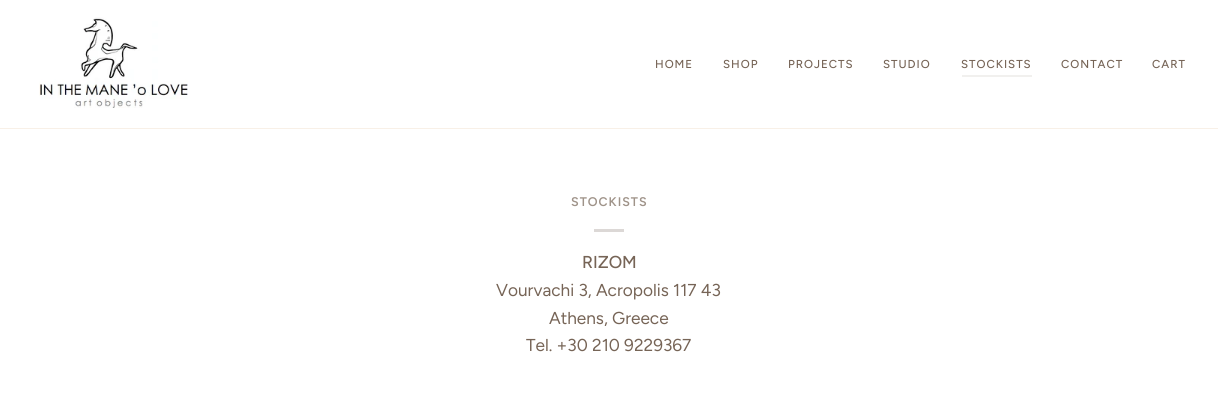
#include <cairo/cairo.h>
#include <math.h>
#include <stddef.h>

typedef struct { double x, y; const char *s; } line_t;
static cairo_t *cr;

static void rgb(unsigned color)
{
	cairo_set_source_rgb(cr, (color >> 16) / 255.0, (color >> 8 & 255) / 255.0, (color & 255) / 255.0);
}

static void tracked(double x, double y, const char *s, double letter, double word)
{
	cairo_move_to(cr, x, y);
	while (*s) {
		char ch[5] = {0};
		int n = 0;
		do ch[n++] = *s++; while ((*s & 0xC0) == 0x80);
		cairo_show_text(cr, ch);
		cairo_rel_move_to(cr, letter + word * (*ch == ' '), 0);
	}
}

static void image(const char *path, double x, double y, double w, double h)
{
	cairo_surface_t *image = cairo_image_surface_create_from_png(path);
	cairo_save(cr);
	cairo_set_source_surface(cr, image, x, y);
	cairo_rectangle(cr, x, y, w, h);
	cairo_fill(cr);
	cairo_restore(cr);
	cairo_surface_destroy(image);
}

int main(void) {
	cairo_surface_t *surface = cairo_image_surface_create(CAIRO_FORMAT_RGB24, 1218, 393);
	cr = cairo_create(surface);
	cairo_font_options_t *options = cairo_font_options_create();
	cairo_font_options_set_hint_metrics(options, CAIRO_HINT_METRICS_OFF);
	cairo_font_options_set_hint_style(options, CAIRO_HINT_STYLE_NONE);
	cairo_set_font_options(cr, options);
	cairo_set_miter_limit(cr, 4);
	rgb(0xffffff);
	cairo_paint(cr);
	rgb(0xf8f0e7);
	cairo_rectangle(cr, 0, 128, 1218, 1);
	cairo_fill(cr);
	image("img/1.png", 39, 17, 149, 91);
	rgb(0xf1f0ee);
	cairo_rectangle(cr, 962, 75, 70, 2);
	cairo_fill(cr);
	rgb(0xdcd8d6);
	cairo_rectangle(cr, 594, 229, 30, 3);
	cairo_fill(cr);
	cairo_select_font_face(cr, "Figtree Medium", CAIRO_FONT_SLANT_NORMAL, CAIRO_FONT_WEIGHT_NORMAL);
	cairo_set_font_size(cr, 11.5);
	rgb(0x766456);
	{
		static const line_t items[] = {
			{655, 68, "HOME"},
			{723, 68, "SHOP"},
			{788, 68, "PROJECTS"},
			{883, 68, "STUDIO"},
			{961, 68, "STOCKISTS"},
			{1061, 68, "CONTACT"},
			{1152, 68, "CART"},
		};
		for (size_t i = 0; i < sizeof items / sizeof *items; i++) {
			tracked(items[i].x, items[i].y, items[i].s, 1, 0);
		}
	}
	cairo_select_font_face(cr, "Figtree SemiBold", CAIRO_FONT_SLANT_NORMAL, CAIRO_FONT_WEIGHT_NORMAL);
	cairo_set_font_size(cr, 12.5);
	rgb(0x9f9389);
	tracked(571, 206, "STOCKISTS", 1, 0);
	cairo_select_font_face(cr, "Figtree Medium", CAIRO_FONT_SLANT_NORMAL, CAIRO_FONT_WEIGHT_NORMAL);
	cairo_set_font_size(cr, 17.25);
	rgb(0x766456);
	cairo_move_to(cr, 582, 268);
	cairo_show_text(cr, "RIZOM");
	cairo_select_font_face(cr, "Figtree", CAIRO_FONT_SLANT_NORMAL, CAIRO_FONT_WEIGHT_NORMAL);
	{
		static const line_t items[] = {
			{496, 296, "Vourvachi 3, Acropolis 117 43"},
			{549, 324, "Athens, Greece"},
			{526, 351, "Tel. +30 210 9229367"},
		};
		for (size_t i = 0; i < sizeof items / sizeof *items; i++) {
			cairo_move_to(cr, items[i].x, items[i].y);
			cairo_show_text(cr, items[i].s);
		}
	}
	cairo_surface_write_to_png(surface, "page.png");
	cairo_font_options_destroy(options);
	cairo_destroy(cr);
	cairo_surface_destroy(surface);
	return 0;
}
